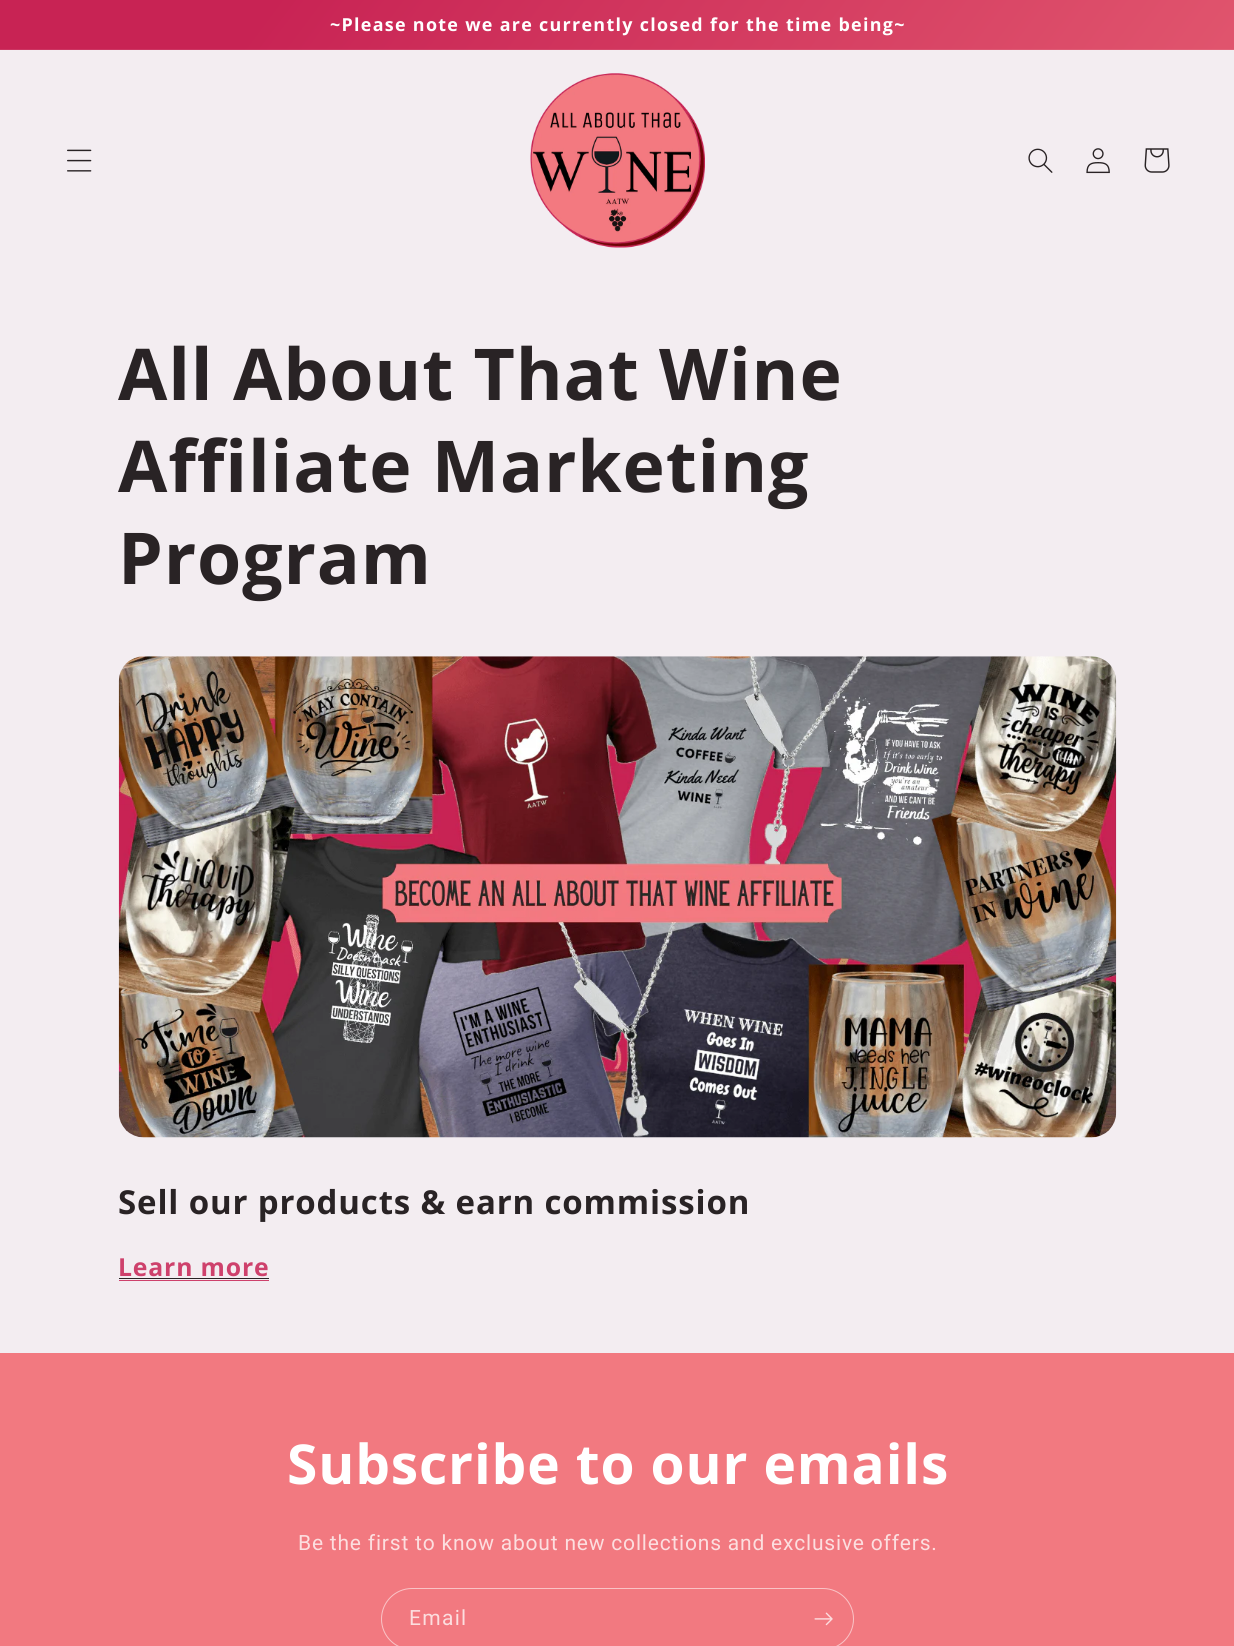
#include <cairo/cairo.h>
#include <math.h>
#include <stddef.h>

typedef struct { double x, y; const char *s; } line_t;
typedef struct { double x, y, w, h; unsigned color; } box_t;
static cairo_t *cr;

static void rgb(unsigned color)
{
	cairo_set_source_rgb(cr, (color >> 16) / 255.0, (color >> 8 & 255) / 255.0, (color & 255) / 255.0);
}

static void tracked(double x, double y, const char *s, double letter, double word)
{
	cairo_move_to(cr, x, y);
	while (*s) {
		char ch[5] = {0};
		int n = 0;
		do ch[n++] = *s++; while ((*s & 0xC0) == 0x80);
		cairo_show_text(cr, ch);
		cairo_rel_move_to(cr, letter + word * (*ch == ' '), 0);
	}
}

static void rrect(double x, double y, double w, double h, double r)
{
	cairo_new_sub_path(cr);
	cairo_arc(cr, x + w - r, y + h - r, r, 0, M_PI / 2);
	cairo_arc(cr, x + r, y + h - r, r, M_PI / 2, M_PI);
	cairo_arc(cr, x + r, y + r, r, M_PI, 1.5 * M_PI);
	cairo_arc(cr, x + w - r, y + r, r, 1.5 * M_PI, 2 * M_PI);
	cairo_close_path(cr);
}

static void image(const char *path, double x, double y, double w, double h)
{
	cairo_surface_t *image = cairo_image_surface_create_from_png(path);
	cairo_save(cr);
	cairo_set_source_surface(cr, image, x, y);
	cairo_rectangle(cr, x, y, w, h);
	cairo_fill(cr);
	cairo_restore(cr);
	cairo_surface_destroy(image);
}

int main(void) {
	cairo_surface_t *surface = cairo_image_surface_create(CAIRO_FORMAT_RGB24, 1234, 1646);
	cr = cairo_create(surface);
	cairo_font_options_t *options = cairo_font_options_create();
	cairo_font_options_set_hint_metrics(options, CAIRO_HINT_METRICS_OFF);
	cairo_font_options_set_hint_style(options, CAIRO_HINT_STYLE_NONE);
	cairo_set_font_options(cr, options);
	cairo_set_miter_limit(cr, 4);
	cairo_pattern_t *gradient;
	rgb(0xf3edf1);
	cairo_paint(cr);
	gradient = cairo_pattern_create_linear(-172, 228, 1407, 1418);
	cairo_pattern_add_color_stop_rgba(gradient, 0.11, 0.784, 0.137, 0.329, 1);
	cairo_pattern_add_color_stop_rgba(gradient, 0.81, 0.949, 0.475, 0.502, 1);
	cairo_set_source(cr, gradient);
	cairo_pattern_destroy(gradient);
	cairo_rectangle(cr, 0, 0, 1234, 49);
	cairo_fill(cr);
	gradient = cairo_pattern_create_linear(-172, 228, 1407, 1418);
	cairo_pattern_add_color_stop_rgba(gradient, 0.11, 0.8, 0.208, 0.384, 1);
	cairo_pattern_add_color_stop_rgba(gradient, 0.81, 0.953, 0.518, 0.541, 1);
	cairo_set_source(cr, gradient);
	cairo_pattern_destroy(gradient);
	cairo_rectangle(cr, 0, 49, 1234, 1);
	cairo_fill(cr);
	image("img/1.png", 67, 149, 25, 23);
	image("img/2.png", 530, 73, 175, 175);
	image("img/3.png", 1028, 148, 25, 25);
	image("img/4.png", 1086, 148, 24, 26);
	image("img/5.png", 1144, 148, 26, 25);
	image("img/6.png", 118, 656, 999, 482);
	{
		static const box_t items[] = {
			{119, 1280, 150, 1, 0xce416c},
			{119, 1278, 150, 1, 0x292325},
			{0, 1353, 1234, 293, 0xf27980},
		};
		for (size_t i = 0; i < sizeof items / sizeof *items; i++) {
			rgb(items[i].color);
			cairo_rectangle(cr, items[i].x, items[i].y, items[i].w, items[i].h);
			cairo_fill(cr);
		}
	}
	rrect(381.5, 1588.5, 472, 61, 30.5);
	rgb(0xf9c3c6);
	cairo_set_line_width(cr, 1);
	cairo_stroke(cr);
	image("img/7.png", 814, 1612, 19, 14);
	cairo_select_font_face(cr, "Open Sans", CAIRO_FONT_SLANT_NORMAL, CAIRO_FONT_WEIGHT_BOLD);
	cairo_set_font_size(cr, 17.9);
	rgb(0xffffff);
	tracked(330, 31, "~Please note we are currently closed for the time being~", 1.3, 0);
	cairo_set_font_size(cr, 71.5);
	rgb(0x292325);
	{
		static const line_t items[] = {
			{118, 400, "All About That Wine"},
			{118, 492, "Affiliate Marketing"},
			{118, 584, "Program"},
		};
		for (size_t i = 0; i < sizeof items / sizeof *items; i++) {
			tracked(items[i].x, items[i].y, items[i].s, 0.85, 0);
		}
	}
	cairo_set_font_size(cr, 33);
	tracked(118, 1214, "Sell our products & earn commission", 0.85, 0);
	cairo_set_font_size(cr, 24.75);
	rgb(0xce416c);
	tracked(118, 1276, "Learn more", 0.85, 0);
	cairo_set_font_size(cr, 55);
	rgb(0xffffff);
	tracked(287, 1484, "Subscribe to our emails", 0.85, 0);
	cairo_select_font_face(cr, "Roboto", CAIRO_FONT_SLANT_NORMAL, CAIRO_FONT_WEIGHT_NORMAL);
	cairo_set_font_size(cr, 21);
	rgb(0xfcdedf);
	tracked(298, 1550, "Be the first to know about new collections and exclusive offers.", 0.8, 0);
	tracked(409, 1625, "Email", 1.3, 0);
	cairo_surface_write_to_png(surface, "page.png");
	cairo_font_options_destroy(options);
	cairo_destroy(cr);
	cairo_surface_destroy(surface);
	return 0;
}
